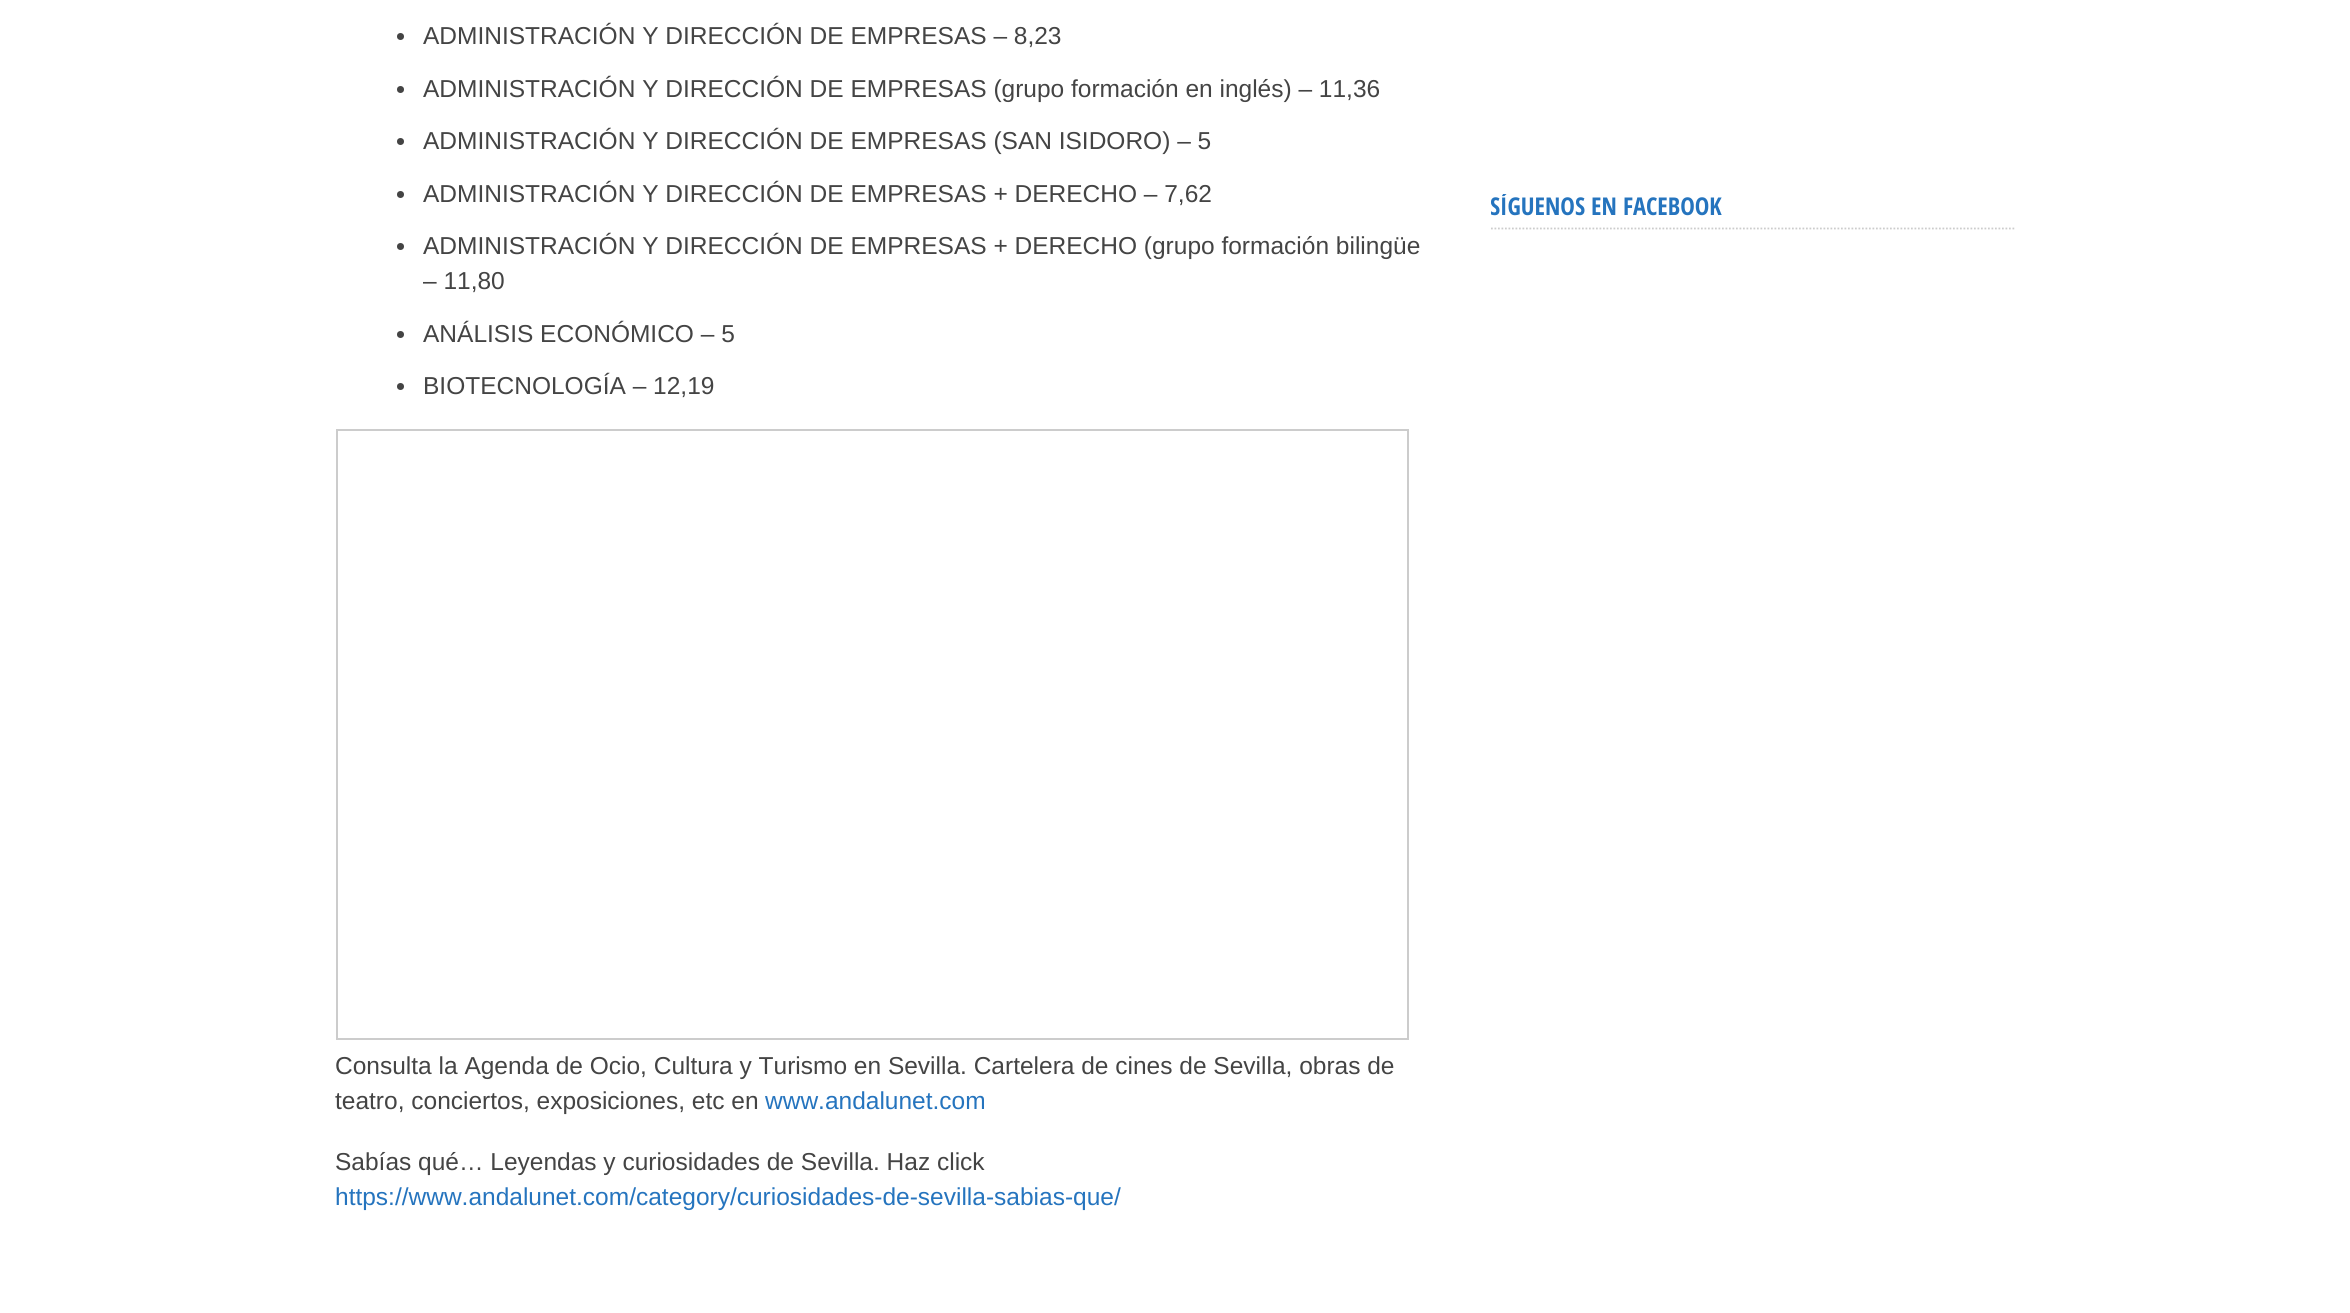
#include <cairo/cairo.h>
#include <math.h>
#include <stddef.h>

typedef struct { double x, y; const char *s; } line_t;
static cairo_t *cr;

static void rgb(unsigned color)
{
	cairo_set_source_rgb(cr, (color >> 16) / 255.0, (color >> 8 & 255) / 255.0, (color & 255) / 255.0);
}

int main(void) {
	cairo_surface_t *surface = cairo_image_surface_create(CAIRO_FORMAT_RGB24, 2350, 1313);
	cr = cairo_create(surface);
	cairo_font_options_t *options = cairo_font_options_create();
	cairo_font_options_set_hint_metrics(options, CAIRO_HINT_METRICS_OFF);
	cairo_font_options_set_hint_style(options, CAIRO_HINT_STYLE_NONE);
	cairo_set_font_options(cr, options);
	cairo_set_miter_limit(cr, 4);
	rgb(0xffffff);
	cairo_paint(cr);
	rgb(0x444444);
	cairo_arc(cr, 400.5, 36.5, 3.5, 0, 2 * M_PI);
	cairo_fill(cr);
	cairo_arc(cr, 400.5, 89.5, 3.5, 0, 2 * M_PI);
	cairo_fill(cr);
	cairo_arc(cr, 400.5, 141.5, 3.5, 0, 2 * M_PI);
	cairo_fill(cr);
	cairo_arc(cr, 400.5, 194.5, 3.5, 0, 2 * M_PI);
	cairo_fill(cr);
	cairo_arc(cr, 400.5, 246.5, 3.5, 0, 2 * M_PI);
	cairo_fill(cr);
	cairo_arc(cr, 400.5, 334.5, 3.5, 0, 2 * M_PI);
	cairo_fill(cr);
	cairo_arc(cr, 400.5, 386.5, 3.5, 0, 2 * M_PI);
	cairo_fill(cr);
	cairo_rectangle(cr, 337, 430, 1071, 609);
	rgb(0xcccccc);
	cairo_stroke(cr);
	cairo_new_path(cr);
	cairo_move_to(cr, 1491, 228.5);
	cairo_line_to(cr, 2016, 228.5);
	cairo_set_line_width(cr, 1.8);
	cairo_set_dash(cr, (double[]){1.75, 1.75}, 2, 0);
	cairo_stroke(cr);
	cairo_select_font_face(cr, "Liberation Sans", CAIRO_FONT_SLANT_NORMAL, CAIRO_FONT_WEIGHT_NORMAL);
	cairo_set_font_size(cr, 24.5);
	rgb(0x444444);
	{
		static const line_t items[] = {
			{423, 44, "ADMINISTRACIÓN Y DIRECCIÓN DE EMPRESAS – 8,23"},
			{423, 97, "ADMINISTRACIÓN Y DIRECCIÓN DE EMPRESAS (grupo formación en inglés) – 11,36"},
			{423, 149, "ADMINISTRACIÓN Y DIRECCIÓN DE EMPRESAS (SAN ISIDORO) – 5"},
			{423, 202, "ADMINISTRACIÓN Y DIRECCIÓN DE EMPRESAS + DERECHO – 7,62"},
			{423, 254, "ADMINISTRACIÓN Y DIRECCIÓN DE EMPRESAS + DERECHO (grupo formación bilingüe"},
			{423, 289, "– 11,80"},
			{423, 342, "ANÁLISIS ECONÓMICO – 5"},
			{423, 394, "BIOTECNOLOGÍA – 12,19"},
			{335, 1074, "Consulta la Agenda de Ocio, Cultura y Turismo en Sevilla. Cartelera de cines de Sevilla, obras de"},
			{335, 1109, "teatro, conciertos, exposiciones, etc en"},
		};
		for (size_t i = 0; i < sizeof items / sizeof *items; i++) {
			cairo_move_to(cr, items[i].x, items[i].y);
			cairo_show_text(cr, items[i].s);
		}
	}
	rgb(0x2574be);
	cairo_move_to(cr, 765, 1109);
	cairo_show_text(cr, "www.andalunet.com");
	rgb(0x444444);
	cairo_move_to(cr, 335, 1170);
	cairo_show_text(cr, "Sabías qué… Leyendas y curiosidades de Sevilla. Haz click");
	rgb(0x2574be);
	cairo_move_to(cr, 335, 1205);
	cairo_show_text(cr, "https://www.andalunet.com/category/curiosidades-de-sevilla-sabias-que/");
	cairo_save(cr);
	cairo_rectangle(cr, 1491, 194, 525, 462);
	cairo_clip(cr);
	cairo_select_font_face(cr, "Open Sans Condensed", CAIRO_FONT_SLANT_NORMAL, CAIRO_FONT_WEIGHT_BOLD);
	cairo_move_to(cr, 1490, 215);
	cairo_show_text(cr, "SÍGUENOS EN FACEBOOK");
	cairo_restore(cr);
	cairo_surface_write_to_png(surface, "page.png");
	cairo_font_options_destroy(options);
	cairo_destroy(cr);
	cairo_surface_destroy(surface);
	return 0;
}
